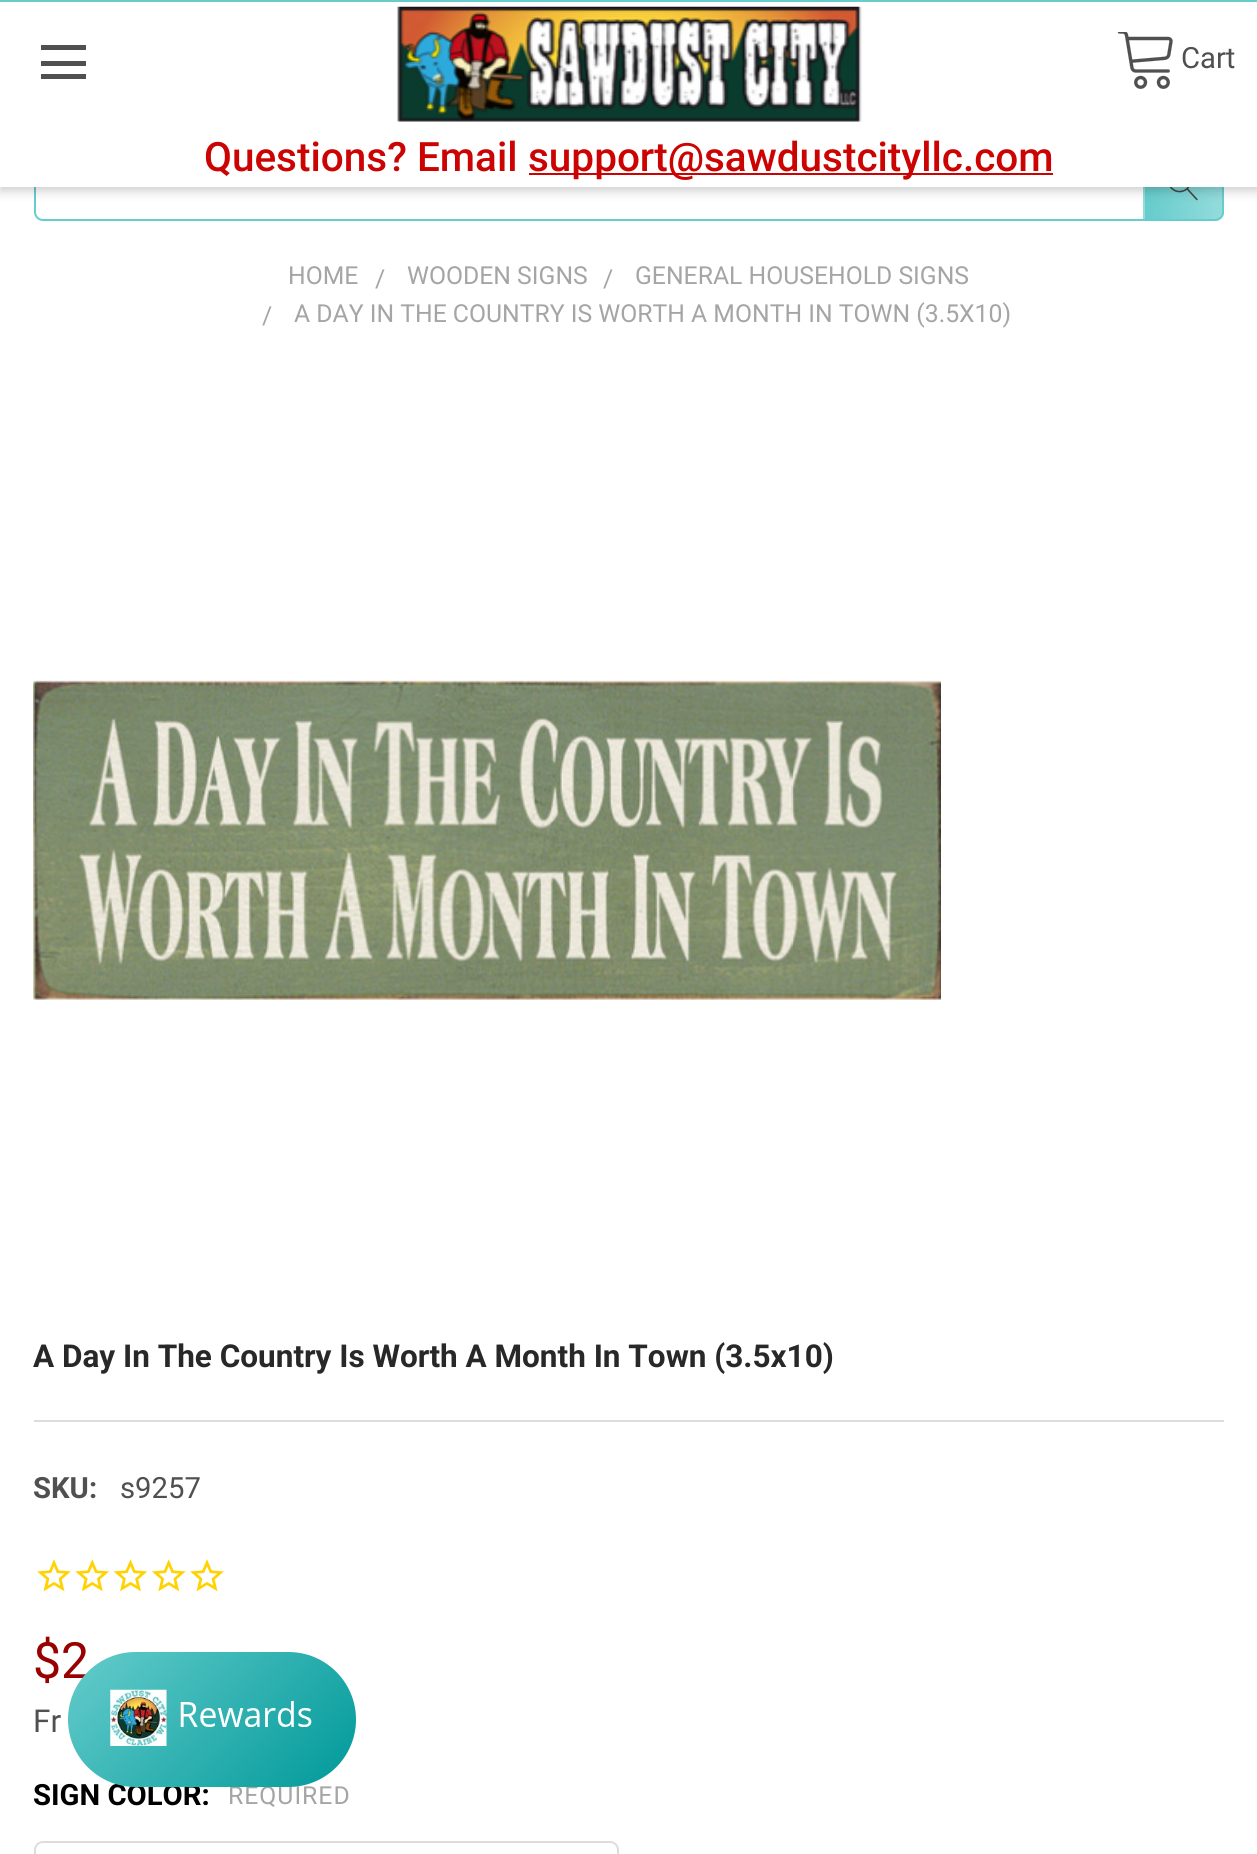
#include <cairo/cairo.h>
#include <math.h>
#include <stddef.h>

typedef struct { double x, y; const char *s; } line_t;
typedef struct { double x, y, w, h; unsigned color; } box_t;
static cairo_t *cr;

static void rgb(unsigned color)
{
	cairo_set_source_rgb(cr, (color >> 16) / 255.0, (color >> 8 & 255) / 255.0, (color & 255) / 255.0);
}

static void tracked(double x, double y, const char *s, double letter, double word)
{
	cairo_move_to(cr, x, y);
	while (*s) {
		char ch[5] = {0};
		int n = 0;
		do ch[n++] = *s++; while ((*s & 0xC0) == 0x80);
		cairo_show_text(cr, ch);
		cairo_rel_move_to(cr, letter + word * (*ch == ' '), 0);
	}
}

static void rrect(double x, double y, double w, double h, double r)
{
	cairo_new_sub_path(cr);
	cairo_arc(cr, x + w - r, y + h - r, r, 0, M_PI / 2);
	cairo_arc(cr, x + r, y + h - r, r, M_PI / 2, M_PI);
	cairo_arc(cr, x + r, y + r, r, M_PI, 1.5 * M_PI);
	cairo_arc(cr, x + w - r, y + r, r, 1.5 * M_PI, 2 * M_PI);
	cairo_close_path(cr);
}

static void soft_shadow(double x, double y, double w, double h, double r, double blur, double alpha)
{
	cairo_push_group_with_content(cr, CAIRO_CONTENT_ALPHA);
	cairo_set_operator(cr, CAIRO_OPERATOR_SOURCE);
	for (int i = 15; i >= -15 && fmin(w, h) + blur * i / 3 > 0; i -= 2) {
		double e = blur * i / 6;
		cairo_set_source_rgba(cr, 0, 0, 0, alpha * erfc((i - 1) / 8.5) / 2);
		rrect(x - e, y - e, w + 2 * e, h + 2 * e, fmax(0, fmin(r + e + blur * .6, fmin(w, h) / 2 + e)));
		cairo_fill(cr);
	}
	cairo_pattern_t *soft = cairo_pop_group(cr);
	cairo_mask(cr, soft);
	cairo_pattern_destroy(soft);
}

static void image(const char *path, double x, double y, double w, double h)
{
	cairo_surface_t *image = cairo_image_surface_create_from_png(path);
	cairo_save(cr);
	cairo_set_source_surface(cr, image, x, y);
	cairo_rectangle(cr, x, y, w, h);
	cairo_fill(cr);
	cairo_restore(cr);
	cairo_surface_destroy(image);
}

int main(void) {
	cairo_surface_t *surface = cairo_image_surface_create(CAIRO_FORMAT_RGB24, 1257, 1854);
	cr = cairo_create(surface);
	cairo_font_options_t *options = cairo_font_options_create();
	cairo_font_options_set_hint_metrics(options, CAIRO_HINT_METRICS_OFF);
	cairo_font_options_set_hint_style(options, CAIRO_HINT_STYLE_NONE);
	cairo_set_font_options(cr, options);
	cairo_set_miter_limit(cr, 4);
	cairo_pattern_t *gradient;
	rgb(0xffffff);
	cairo_paint(cr);
	rrect(35, 147, 1188, 73, 8);
	rgb(0x66cccc);
	cairo_stroke(cr);
	gradient = cairo_pattern_create_linear(1069, 183, 1145, 183);
	cairo_pattern_add_color_stop_rgba(gradient, 0, 0.4, 0.8, 0.8, 1);
	cairo_pattern_add_color_stop_rgba(gradient, 1, 0.4, 0.8, 0.8, 0.7);
	cairo_set_source(cr, gradient);
	cairo_pattern_destroy(gradient);
	cairo_rectangle(cr, 1143, 187, 2, 34);
	cairo_fill(cr);
	cairo_save(cr);
	cairo_new_path(cr);
	cairo_move_to(cr, 1143, 146);
	cairo_line_to(cr, 1215, 146);
	cairo_curve_to(cr, 1220, 146, 1224, 150, 1224, 155);
	cairo_line_to(cr, 1224, 212);
	cairo_curve_to(cr, 1224, 217, 1220, 221, 1215, 221);
	cairo_line_to(cr, 1143, 221);
	cairo_close_path(cr);
	cairo_clip(cr);
	gradient = cairo_pattern_create_linear(1145, 183, 1222, 183);
	cairo_pattern_add_color_stop_rgba(gradient, 0, 0.4, 0.8, 0.8, 1);
	cairo_pattern_add_color_stop_rgba(gradient, 1, 0.4, 0.8, 0.8, 0.7);
	cairo_set_source(cr, gradient);
	cairo_pattern_destroy(gradient);
	cairo_rectangle(cr, 1145, 187, 77, 34);
	cairo_fill(cr);
	gradient = cairo_pattern_create_linear(1222, 183, 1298, 183);
	cairo_pattern_add_color_stop_rgba(gradient, 0, 0.4, 0.8, 0.8, 1);
	cairo_pattern_add_color_stop_rgba(gradient, 1, 0.4, 0.8, 0.8, 0.7);
	cairo_set_source(cr, gradient);
	cairo_pattern_destroy(gradient);
	cairo_rectangle(cr, 1222, 187, 2, 34);
	cairo_fill(cr);
	cairo_restore(cr);
	image("img/3.png", 1169, 187, 29, 14);
	rgb(0x000000);
	soft_shadow(0, 5, 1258, 186, 0, 5.5, 0.2);
	{
		static const box_t items[] = {
			{0, 2, 1257, 185, 0xffffff},
			{0, 0, 1257, 2, 0x66cccc},
			{41, 61, 45, 5, 0x505050},
			{41, 45, 45, 5, 0x505050},
			{41, 74, 45, 5, 0x505050},
		};
		for (size_t i = 0; i < sizeof items / sizeof *items; i++) {
			rgb(items[i].color);
			cairo_rectangle(cr, items[i].x, items[i].y, items[i].w, items[i].h);
			cairo_fill(cr);
		}
	}
	image("img/1.png", 397, 6, 465, 116);
	image("img/2.png", 1117, 32, 56, 57);
	rgb(0xcc0303);
	cairo_rectangle(cr, 529, 173, 524, 2);
	cairo_fill(cr);
	image("img/4.png", 33, 680, 908, 320);
	rgb(0xdcdcdc);
	cairo_rectangle(cr, 34, 1420, 1190, 2);
	cairo_fill(cr);
	image("img/5.png", 37, 1559, 34, 33);
	image("img/6.png", 75, 1559, 34, 33);
	image("img/7.png", 113, 1559, 35, 33);
	image("img/8.png", 152, 1559, 34, 33);
	image("img/5.png", 190, 1559, 34, 33);
	rrect(35, 1842, 583, 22, 8);
	cairo_stroke(cr);
	cairo_select_font_face(cr, "Roboto", CAIRO_FONT_SLANT_NORMAL, CAIRO_FONT_WEIGHT_NORMAL);
	cairo_set_font_size(cr, 29.25);
	rgb(0x505050);
	cairo_move_to(cr, 1181, 68);
	cairo_show_text(cr, "Cart");
	cairo_select_font_face(cr, "Roboto Medium", CAIRO_FONT_SLANT_NORMAL, CAIRO_FONT_WEIGHT_NORMAL);
	cairo_set_font_size(cr, 40.5);
	rgb(0xcc0303);
	cairo_move_to(cr, 204, 171);
	cairo_show_text(cr, "Questions? Email");
	cairo_move_to(cr, 528, 171);
	cairo_show_text(cr, "support@sawdustcityllc.com");
	cairo_select_font_face(cr, "Roboto", CAIRO_FONT_SLANT_NORMAL, CAIRO_FONT_WEIGHT_NORMAL);
	cairo_set_font_size(cr, 24.75);
	rgb(0xa5a5a5);
	{
		static const line_t items[] = {
			{288, 284, "HOME"},
			{375, 287, "/"},
			{407, 284, "WOODEN SIGNS"},
			{603, 287, "/"},
			{635, 284, "GENERAL HOUSEHOLD SIGNS"},
			{262, 324, "/"},
			{294, 322, "A DAY IN THE COUNTRY IS WORTH A MONTH IN TOWN (3.5X10)"},
		};
		for (size_t i = 0; i < sizeof items / sizeof *items; i++) {
			cairo_move_to(cr, items[i].x, items[i].y);
			cairo_show_text(cr, items[i].s);
		}
	}
	cairo_select_font_face(cr, "Roboto", CAIRO_FONT_SLANT_NORMAL, CAIRO_FONT_WEIGHT_BOLD);
	cairo_set_font_size(cr, 31.5);
	rgb(0x282828);
	cairo_move_to(cr, 33, 1367);
	cairo_show_text(cr, "A Day In The Country Is Worth A Month In Town (3.5x10)");
	cairo_set_font_size(cr, 29.25);
	rgb(0x505050);
	cairo_move_to(cr, 33, 1498);
	cairo_show_text(cr, "SKU:");
	cairo_select_font_face(cr, "Roboto", CAIRO_FONT_SLANT_NORMAL, CAIRO_FONT_WEIGHT_NORMAL);
	cairo_move_to(cr, 120, 1498);
	cairo_show_text(cr, "s9257");
	cairo_set_font_size(cr, 50);
	rgb(0x990000);
	cairo_move_to(cr, 33, 1678);
	cairo_show_text(cr, "$2");
	cairo_set_font_size(cr, 31.5);
	rgb(0x505050);
	cairo_move_to(cr, 33, 1732);
	cairo_show_text(cr, "Fr");
	cairo_select_font_face(cr, "Roboto", CAIRO_FONT_SLANT_NORMAL, CAIRO_FONT_WEIGHT_BOLD);
	cairo_set_font_size(cr, 29.25);
	rgb(0x000000);
	cairo_move_to(cr, 33, 1805);
	cairo_show_text(cr, "SIGN COLOR:");
	cairo_select_font_face(cr, "Roboto", CAIRO_FONT_SLANT_NORMAL, CAIRO_FONT_WEIGHT_NORMAL);
	cairo_set_font_size(cr, 24.75);
	rgb(0xa5a5a5);
	tracked(228, 1804, "REQUIRED", 1, 0);
	gradient = cairo_pattern_create_linear(106, 1613, 317, 1825);
	cairo_pattern_add_color_stop_rgba(gradient, 0, 0.4, 0.8, 0.8, 1);
	cairo_pattern_add_color_stop_rgba(gradient, 1, 0, 0.6, 0.6, 1);
	cairo_set_source(cr, gradient);
	cairo_pattern_destroy(gradient);
	rrect(68, 1652, 288, 135, 67.5);
	cairo_fill(cr);
	image("img/9.png", 110, 1689, 202, 57);
	cairo_surface_write_to_png(surface, "page.png");
	cairo_font_options_destroy(options);
	cairo_destroy(cr);
	cairo_surface_destroy(surface);
	return 0;
}
